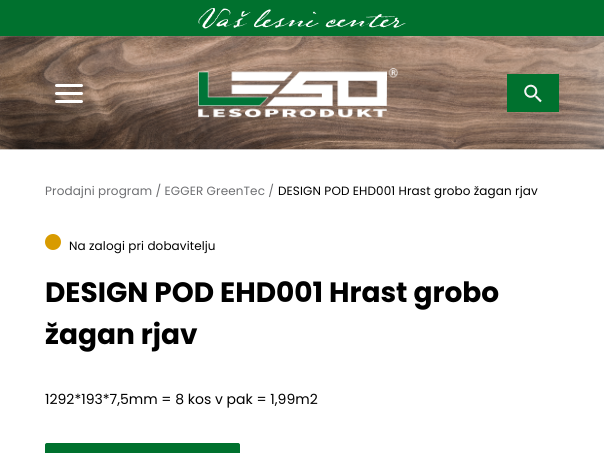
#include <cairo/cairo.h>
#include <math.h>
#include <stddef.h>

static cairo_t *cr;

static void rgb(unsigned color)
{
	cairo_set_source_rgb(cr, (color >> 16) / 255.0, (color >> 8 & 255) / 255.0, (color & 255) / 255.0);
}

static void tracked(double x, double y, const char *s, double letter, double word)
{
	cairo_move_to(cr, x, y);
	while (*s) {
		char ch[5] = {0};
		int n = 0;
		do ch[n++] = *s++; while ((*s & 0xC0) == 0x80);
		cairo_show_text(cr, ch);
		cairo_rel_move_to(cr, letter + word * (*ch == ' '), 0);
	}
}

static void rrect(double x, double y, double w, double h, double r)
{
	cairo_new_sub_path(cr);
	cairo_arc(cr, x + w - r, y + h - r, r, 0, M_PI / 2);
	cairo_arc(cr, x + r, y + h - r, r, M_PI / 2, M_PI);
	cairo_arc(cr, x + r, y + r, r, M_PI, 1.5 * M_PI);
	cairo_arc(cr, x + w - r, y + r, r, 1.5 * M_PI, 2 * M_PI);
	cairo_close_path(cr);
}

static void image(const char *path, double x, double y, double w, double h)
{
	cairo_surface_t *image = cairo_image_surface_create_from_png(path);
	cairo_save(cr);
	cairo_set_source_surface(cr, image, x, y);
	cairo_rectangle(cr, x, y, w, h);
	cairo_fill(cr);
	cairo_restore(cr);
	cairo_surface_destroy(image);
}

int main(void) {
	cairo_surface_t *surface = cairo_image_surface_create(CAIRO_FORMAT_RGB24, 604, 453);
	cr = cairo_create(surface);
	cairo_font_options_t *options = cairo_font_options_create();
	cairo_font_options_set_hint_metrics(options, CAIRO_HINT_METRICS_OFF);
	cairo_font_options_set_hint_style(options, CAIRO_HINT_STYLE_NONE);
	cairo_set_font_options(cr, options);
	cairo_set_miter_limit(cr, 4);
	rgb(0xffffff);
	cairo_paint(cr);
	rgb(0x00712e);
	cairo_rectangle(cr, 0, 0, 604, 36);
	cairo_fill(cr);
	image("img/1.png", 198, 8, 208, 21);
	image("img/2.png", 0, 36, 604, 114);
	rgb(0xffffff);
	rrect(55, 84, 28, 3, 1.5);
	cairo_fill(cr);
	rrect(55, 92, 28, 3, 1.5);
	cairo_fill(cr);
	rrect(55, 100, 28, 3, 1.5);
	cairo_fill(cr);
	image("img/3.png", 198, 68, 200, 50);
	rgb(0x00712e);
	cairo_rectangle(cr, 507, 74, 52, 38);
	cairo_fill(cr);
	image("img/4.png", 524, 84, 18, 19);
	rgb(0xd89b00);
	cairo_arc(cr, 53, 242, 8, 0, 2 * M_PI);
	cairo_fill(cr);
	rgb(0x00712e);
	rrect(45.5, 443.5, 194, 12, 1.5);
	cairo_fill_preserve(cr);
	cairo_set_line_width(cr, 1);
	cairo_stroke(cr);
	cairo_select_font_face(cr, "Poppins", CAIRO_FONT_SLANT_NORMAL, CAIRO_FONT_WEIGHT_NORMAL);
	cairo_set_font_size(cr, 12);
	rgb(0x6d6e71);
	tracked(45, 195, "Prodajni program / EGGER GreenTec /", 0.1, 0);
	rgb(0x000000);
	tracked(278, 195, "DESIGN POD EHD001 Hrast grobo žagan rjav", 0.1, 0);
	tracked(69, 250, "Na zalogi pri dobavitelju", 0.1, 0);
	cairo_select_font_face(cr, "Poppins", CAIRO_FONT_SLANT_NORMAL, CAIRO_FONT_WEIGHT_BOLD);
	cairo_set_font_size(cr, 28);
	cairo_move_to(cr, 45, 302);
	cairo_show_text(cr, "DESIGN POD EHD001 Hrast grobo");
	cairo_move_to(cr, 45, 344);
	cairo_show_text(cr, "žagan rjav");
	cairo_select_font_face(cr, "Poppins", CAIRO_FONT_SLANT_NORMAL, CAIRO_FONT_WEIGHT_NORMAL);
	cairo_set_font_size(cr, 14);
	cairo_move_to(cr, 45, 404);
	cairo_show_text(cr, "1292*193*7,5mm = 8 kos v pak = 1,99m2");
	cairo_surface_write_to_png(surface, "page.png");
	cairo_font_options_destroy(options);
	cairo_destroy(cr);
	cairo_surface_destroy(surface);
	return 0;
}
